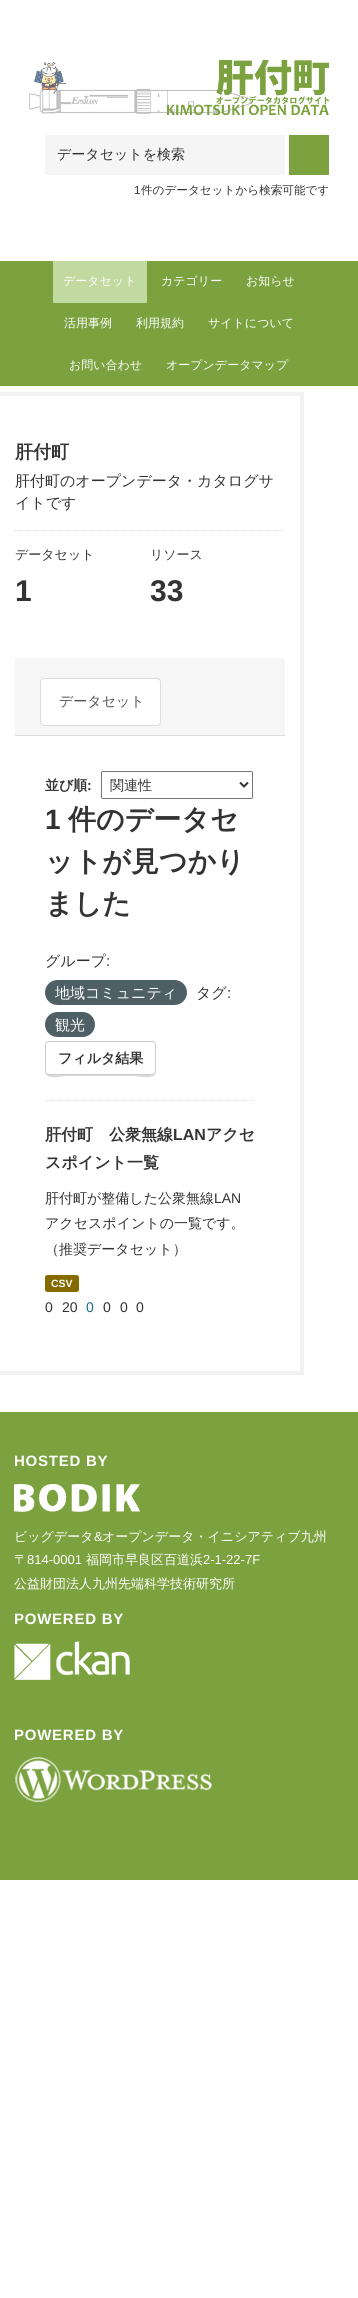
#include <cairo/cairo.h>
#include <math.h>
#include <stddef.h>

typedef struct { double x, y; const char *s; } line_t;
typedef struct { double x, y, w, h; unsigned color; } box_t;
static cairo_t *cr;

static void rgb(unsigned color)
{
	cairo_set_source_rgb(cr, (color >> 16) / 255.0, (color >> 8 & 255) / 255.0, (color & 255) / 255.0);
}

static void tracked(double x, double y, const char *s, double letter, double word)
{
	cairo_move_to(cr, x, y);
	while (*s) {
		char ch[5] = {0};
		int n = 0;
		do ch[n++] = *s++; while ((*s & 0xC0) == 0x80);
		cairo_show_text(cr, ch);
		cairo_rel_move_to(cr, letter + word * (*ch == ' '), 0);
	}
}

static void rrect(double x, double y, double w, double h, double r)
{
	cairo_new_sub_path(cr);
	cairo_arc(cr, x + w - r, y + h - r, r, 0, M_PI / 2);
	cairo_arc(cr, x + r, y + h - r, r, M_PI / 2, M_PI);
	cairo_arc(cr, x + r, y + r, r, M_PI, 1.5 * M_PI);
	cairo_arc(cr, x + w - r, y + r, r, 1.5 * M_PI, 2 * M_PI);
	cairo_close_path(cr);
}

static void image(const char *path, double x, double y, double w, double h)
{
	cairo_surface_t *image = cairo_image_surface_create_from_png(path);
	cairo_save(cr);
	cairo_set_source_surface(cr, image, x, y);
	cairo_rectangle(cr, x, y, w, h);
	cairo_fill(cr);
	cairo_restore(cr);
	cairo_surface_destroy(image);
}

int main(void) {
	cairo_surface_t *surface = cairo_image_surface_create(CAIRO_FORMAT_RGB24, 358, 2298);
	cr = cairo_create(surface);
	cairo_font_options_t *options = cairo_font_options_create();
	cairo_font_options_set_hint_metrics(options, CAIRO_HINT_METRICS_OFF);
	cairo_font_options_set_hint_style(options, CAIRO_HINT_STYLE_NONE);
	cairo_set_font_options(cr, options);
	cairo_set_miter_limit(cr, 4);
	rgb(0xffffff);
	cairo_paint(cr);
	image("img/1.png", 29, 60, 300, 55);
	rgb(0xf5f5f5);
	rrect(45, 135, 240, 40, 1);
	cairo_fill(cr);
	{
		static const box_t items[] = {
			{289, 135, 40, 40, 0x7ba23f},
			{0, 261, 358, 125, 0x7ba23f},
			{53, 261, 94, 42, 0xc2d99f},
		};
		for (size_t i = 0; i < sizeof items / sizeof *items; i++) {
			rgb(items[i].color);
			cairo_rectangle(cr, items[i].x, items[i].y, items[i].w, items[i].h);
			cairo_fill(cr);
		}
	}
	cairo_rectangle(cr, -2, 394, 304, 979);
	rgb(0xf2f2f2);
	cairo_set_line_width(cr, 4);
	cairo_stroke(cr);
	cairo_new_path(cr);
	cairo_move_to(cr, 15, 530.5);
	cairo_line_to(cr, 284, 530.5);
	rgb(0xdddddd);
	cairo_set_line_width(cr, 1);
	cairo_set_dash(cr, (double[]){1, 1}, 2, 0);
	cairo_stroke(cr);
	rgb(0xf6f6f6);
	cairo_new_path(cr);
	cairo_move_to(cr, 15, 658);
	cairo_line_to(cr, 282, 658);
	cairo_curve_to(cr, 283.5, 658, 285, 659.5, 285, 661);
	cairo_line_to(cr, 285, 736);
	cairo_line_to(cr, 15, 736);
	cairo_close_path(cr);
	cairo_fill(cr);
	rgb(0xdddddd);
	cairo_rectangle(cr, 15, 735, 270, 1);
	cairo_fill(cr);
	rgb(0xffffff);
	rrect(40.5, 678.5, 120, 47, 3.5);
	cairo_fill_preserve(cr);
	rgb(0xdddddd);
	cairo_set_dash(cr, NULL, 0, 0);
	cairo_stroke(cr);
	cairo_new_path(cr);
	cairo_move_to(cr, 45, 1100.5);
	cairo_line_to(cr, 255, 1100.5);
	cairo_set_dash(cr, (double[]){1, 1}, 2, 0);
	cairo_stroke(cr);
	rrect(101.5, 771.5, 151, 27, 1.5);
	rgb(0x767676);
	cairo_set_dash(cr, NULL, 0, 0);
	cairo_stroke(cr);
	cairo_new_path(cr);
	cairo_move_to(cr, 240, 782.5);
	cairo_line_to(cr, 244, 786.5);
	cairo_line_to(cr, 248, 782.5);
	rgb(0x333333);
	cairo_set_line_width(cr, 2);
	cairo_stroke(cr);
	rgb(0x4e5f65);
	rrect(45, 980, 142, 25, 12.5);
	cairo_fill(cr);
	rrect(45, 1012, 50, 25, 12.5);
	cairo_fill(cr);
	rgb(0xd9d9d9);
	cairo_new_path(cr);
	cairo_move_to(cr, 45, 1071);
	cairo_curve_to(cr, 45, 1081, 63, 1076, 66, 1076);
	cairo_line_to(cr, 135, 1076);
	cairo_curve_to(cr, 138, 1076, 156, 1081, 156, 1071);
	cairo_curve_to(cr, 156, 1073, 154, 1075, 152, 1075);
	cairo_line_to(cr, 49, 1075);
	cairo_curve_to(cr, 47, 1075, 45, 1073, 45, 1071);
	cairo_close_path(cr);
	cairo_fill(cr);
	rgb(0xffffff);
	rrect(45.5, 1041.5, 110, 33, 3.5);
	cairo_fill_preserve(cr);
	rgb(0xcccccc);
	cairo_set_line_width(cr, 1);
	cairo_stroke(cr);
	rgb(0x856a00);
	rrect(45, 1275, 34, 17, 2.5);
	cairo_fill(cr);
	rgb(0x7ba23f);
	cairo_rectangle(cr, 0, 1412, 358, 468);
	cairo_fill(cr);
	image("img/2.png", 14, 1484, 126, 28);
	image("img/3.png", 14, 1641, 116, 39);
	image("img/4.png", 15, 1757, 197, 45);
	cairo_select_font_face(cr, "WenQuanYi Zen Hei Medium", CAIRO_FONT_SLANT_NORMAL, CAIRO_FONT_WEIGHT_NORMAL);
	cairo_set_font_size(cr, 14);
	rgb(0x333333);
	cairo_move_to(cr, 57, 159);
	cairo_show_text(cr, "データセットを検索");
	cairo_select_font_face(cr, "Liberation Sans", CAIRO_FONT_SLANT_NORMAL, CAIRO_FONT_WEIGHT_NORMAL);
	cairo_set_font_size(cr, 11.6);
	cairo_move_to(cr, 134, 194);
	cairo_show_text(cr, "1");
	cairo_select_font_face(cr, "WenQuanYi Zen Hei Medium", CAIRO_FONT_SLANT_NORMAL, CAIRO_FONT_WEIGHT_NORMAL);
	cairo_move_to(cr, 141, 194);
	cairo_show_text(cr, "件のデータセットから検索可能です");
	cairo_set_font_size(cr, 12);
	rgb(0xffffff);
	{
		static const line_t items[] = {
			{63, 285, "データセット"},
			{161, 285, "カテゴリー"},
			{246, 285, "お知らせ"},
			{64, 327, "活用事例"},
			{136, 327, "利用規約"},
			{208, 327, "サイトについて"},
			{69, 369, "お問い合わせ"},
			{166, 369, "オープンデータマップ"},
		};
		for (size_t i = 0; i < sizeof items / sizeof *items; i++) {
			cairo_move_to(cr, items[i].x, items[i].y);
			cairo_show_text(cr, items[i].s);
		}
	}
	cairo_select_font_face(cr, "WenQuanYi Zen Hei", CAIRO_FONT_SLANT_NORMAL, CAIRO_FONT_WEIGHT_BOLD);
	cairo_set_font_size(cr, 18);
	rgb(0x333333);
	cairo_move_to(cr, 15, 458);
	cairo_show_text(cr, "肝付町");
	cairo_select_font_face(cr, "WenQuanYi Zen Hei Medium", CAIRO_FONT_SLANT_NORMAL, CAIRO_FONT_WEIGHT_NORMAL);
	cairo_set_font_size(cr, 15);
	cairo_move_to(cr, 15, 486);
	cairo_show_text(cr, "肝付町のオープンデータ・カタログサ");
	cairo_move_to(cr, 15, 508);
	cairo_show_text(cr, "イトです");
	cairo_set_font_size(cr, 13);
	cairo_move_to(cr, 15, 559);
	cairo_show_text(cr, "データセット");
	cairo_select_font_face(cr, "Liberation Sans", CAIRO_FONT_SLANT_NORMAL, CAIRO_FONT_WEIGHT_BOLD);
	cairo_set_font_size(cr, 30);
	cairo_move_to(cr, 15, 601);
	cairo_show_text(cr, "1");
	cairo_select_font_face(cr, "WenQuanYi Zen Hei Medium", CAIRO_FONT_SLANT_NORMAL, CAIRO_FONT_WEIGHT_NORMAL);
	cairo_set_font_size(cr, 13);
	cairo_move_to(cr, 150, 559);
	cairo_show_text(cr, "リソース");
	cairo_select_font_face(cr, "Liberation Sans", CAIRO_FONT_SLANT_NORMAL, CAIRO_FONT_WEIGHT_BOLD);
	cairo_set_font_size(cr, 30);
	cairo_move_to(cr, 150, 601);
	cairo_show_text(cr, "33");
	cairo_select_font_face(cr, "WenQuanYi Zen Hei Medium", CAIRO_FONT_SLANT_NORMAL, CAIRO_FONT_WEIGHT_NORMAL);
	cairo_set_font_size(cr, 14);
	rgb(0x555555);
	cairo_move_to(cr, 59, 706);
	cairo_show_text(cr, "データセット");
	cairo_select_font_face(cr, "WenQuanYi Zen Hei", CAIRO_FONT_SLANT_NORMAL, CAIRO_FONT_WEIGHT_BOLD);
	rgb(0x333333);
	cairo_move_to(cr, 45, 790);
	cairo_show_text(cr, "並び順");
	cairo_select_font_face(cr, "Liberation Sans", CAIRO_FONT_SLANT_NORMAL, CAIRO_FONT_WEIGHT_BOLD);
	cairo_move_to(cr, 87, 790);
	cairo_show_text(cr, ":");
	cairo_select_font_face(cr, "WenQuanYi Zen Hei Medium", CAIRO_FONT_SLANT_NORMAL, CAIRO_FONT_WEIGHT_NORMAL);
	cairo_move_to(cr, 110, 790);
	cairo_show_text(cr, "関連性");
	cairo_select_font_face(cr, "Liberation Sans", CAIRO_FONT_SLANT_NORMAL, CAIRO_FONT_WEIGHT_BOLD);
	cairo_set_font_size(cr, 28);
	cairo_move_to(cr, 45, 829);
	cairo_show_text(cr, "1");
	cairo_select_font_face(cr, "WenQuanYi Zen Hei", CAIRO_FONT_SLANT_NORMAL, CAIRO_FONT_WEIGHT_BOLD);
	{
		static const line_t items[] = {
			{68, 829, "件のデータセ"},
			{45, 871, "ットが見つかり"},
			{45, 913, "ました"},
		};
		for (size_t i = 0; i < sizeof items / sizeof *items; i++) {
			cairo_move_to(cr, items[i].x, items[i].y);
			cairo_show_text(cr, items[i].s);
		}
	}
	cairo_select_font_face(cr, "WenQuanYi Zen Hei Medium", CAIRO_FONT_SLANT_NORMAL, CAIRO_FONT_WEIGHT_NORMAL);
	cairo_set_font_size(cr, 15);
	cairo_move_to(cr, 45, 966);
	cairo_show_text(cr, "グループ");
	cairo_select_font_face(cr, "Liberation Sans", CAIRO_FONT_SLANT_NORMAL, CAIRO_FONT_WEIGHT_NORMAL);
	cairo_move_to(cr, 106, 966);
	cairo_show_text(cr, ":");
	cairo_select_font_face(cr, "WenQuanYi Zen Hei Medium", CAIRO_FONT_SLANT_NORMAL, CAIRO_FONT_WEIGHT_NORMAL);
	rgb(0xffffff);
	cairo_move_to(cr, 55, 998);
	cairo_show_text(cr, "地域コミュニティ");
	rgb(0x333333);
	cairo_move_to(cr, 196, 998);
	cairo_show_text(cr, "タグ");
	cairo_select_font_face(cr, "Liberation Sans", CAIRO_FONT_SLANT_NORMAL, CAIRO_FONT_WEIGHT_NORMAL);
	cairo_move_to(cr, 227, 998);
	cairo_show_text(cr, ":");
	cairo_select_font_face(cr, "WenQuanYi Zen Hei Medium", CAIRO_FONT_SLANT_NORMAL, CAIRO_FONT_WEIGHT_NORMAL);
	rgb(0xffffff);
	cairo_move_to(cr, 55, 1030);
	cairo_show_text(cr, "観光");
	cairo_select_font_face(cr, "WenQuanYi Zen Hei", CAIRO_FONT_SLANT_NORMAL, CAIRO_FONT_WEIGHT_BOLD);
	cairo_set_font_size(cr, 14);
	rgb(0x333333);
	cairo_move_to(cr, 58, 1063);
	cairo_show_text(cr, "フィルタ結果");
	cairo_set_font_size(cr, 16);
	cairo_move_to(cr, 45, 1140);
	cairo_show_text(cr, "肝付町　公衆無線");
	cairo_select_font_face(cr, "Liberation Sans", CAIRO_FONT_SLANT_NORMAL, CAIRO_FONT_WEIGHT_BOLD);
	cairo_move_to(cr, 173, 1140);
	cairo_show_text(cr, "LAN");
	cairo_select_font_face(cr, "WenQuanYi Zen Hei", CAIRO_FONT_SLANT_NORMAL, CAIRO_FONT_WEIGHT_BOLD);
	cairo_move_to(cr, 206, 1140);
	cairo_show_text(cr, "アクセ");
	cairo_move_to(cr, 45, 1168);
	cairo_show_text(cr, "スポイント一覧");
	cairo_select_font_face(cr, "WenQuanYi Zen Hei Medium", CAIRO_FONT_SLANT_NORMAL, CAIRO_FONT_WEIGHT_NORMAL);
	cairo_set_font_size(cr, 14);
	cairo_move_to(cr, 45, 1203);
	cairo_show_text(cr, "肝付町が整備した公衆無線");
	cairo_select_font_face(cr, "Liberation Sans", CAIRO_FONT_SLANT_NORMAL, CAIRO_FONT_WEIGHT_NORMAL);
	cairo_move_to(cr, 214, 1203);
	cairo_show_text(cr, "LAN");
	cairo_select_font_face(cr, "WenQuanYi Zen Hei Medium", CAIRO_FONT_SLANT_NORMAL, CAIRO_FONT_WEIGHT_NORMAL);
	cairo_move_to(cr, 45, 1228);
	cairo_show_text(cr, "アクセスポイントの一覧です。");
	cairo_move_to(cr, 45, 1254);
	cairo_show_text(cr, "（推奨データセット）");
	cairo_select_font_face(cr, "Liberation Sans", CAIRO_FONT_SLANT_NORMAL, CAIRO_FONT_WEIGHT_BOLD);
	cairo_set_font_size(cr, 10.5);
	rgb(0xffffff);
	cairo_move_to(cr, 51, 1287);
	cairo_show_text(cr, "CSV");
	cairo_select_font_face(cr, "Liberation Sans", CAIRO_FONT_SLANT_NORMAL, CAIRO_FONT_WEIGHT_NORMAL);
	cairo_set_font_size(cr, 14);
	rgb(0x333333);
	cairo_move_to(cr, 45, 1312);
	cairo_show_text(cr, "0");
	cairo_move_to(cr, 62, 1312);
	cairo_show_text(cr, "20");
	rgb(0x206b82);
	cairo_move_to(cr, 86, 1312);
	cairo_show_text(cr, "0");
	rgb(0x333333);
	{
		static const line_t items[] = {
			{103, 1312, "0"},
			{120, 1312, "0"},
			{136, 1312, "0"},
		};
		for (size_t i = 0; i < sizeof items / sizeof *items; i++) {
			cairo_move_to(cr, items[i].x, items[i].y);
			cairo_show_text(cr, items[i].s);
		}
	}
	cairo_select_font_face(cr, "Liberation Sans", CAIRO_FONT_SLANT_NORMAL, CAIRO_FONT_WEIGHT_BOLD);
	cairo_set_font_size(cr, 15);
	rgb(0xffffff);
	tracked(14, 1466, "HOSTED BY", 0.75, 0);
	cairo_select_font_face(cr, "WenQuanYi Zen Hei Medium", CAIRO_FONT_SLANT_NORMAL, CAIRO_FONT_WEIGHT_NORMAL);
	cairo_set_font_size(cr, 13);
	cairo_move_to(cr, 14, 1541);
	cairo_show_text(cr, "ビッグデータ");
	cairo_select_font_face(cr, "Liberation Sans", CAIRO_FONT_SLANT_NORMAL, CAIRO_FONT_WEIGHT_NORMAL);
	cairo_move_to(cr, 94, 1541);
	cairo_show_text(cr, "&");
	cairo_select_font_face(cr, "WenQuanYi Zen Hei Medium", CAIRO_FONT_SLANT_NORMAL, CAIRO_FONT_WEIGHT_NORMAL);
	cairo_move_to(cr, 102, 1541);
	cairo_show_text(cr, "オープンデータ・イニシアティブ九州");
	cairo_move_to(cr, 14, 1564);
	cairo_show_text(cr, "〒");
	cairo_select_font_face(cr, "Liberation Sans", CAIRO_FONT_SLANT_NORMAL, CAIRO_FONT_WEIGHT_NORMAL);
	cairo_move_to(cr, 27, 1564);
	cairo_show_text(cr, "814-0001");
	cairo_select_font_face(cr, "WenQuanYi Zen Hei Medium", CAIRO_FONT_SLANT_NORMAL, CAIRO_FONT_WEIGHT_NORMAL);
	cairo_move_to(cr, 86, 1564);
	cairo_show_text(cr, "福岡市早良区百道浜");
	cairo_select_font_face(cr, "Liberation Sans", CAIRO_FONT_SLANT_NORMAL, CAIRO_FONT_WEIGHT_NORMAL);
	cairo_move_to(cr, 203, 1564);
	cairo_show_text(cr, "2-1-22-7F");
	cairo_select_font_face(cr, "WenQuanYi Zen Hei Medium", CAIRO_FONT_SLANT_NORMAL, CAIRO_FONT_WEIGHT_NORMAL);
	cairo_move_to(cr, 14, 1588);
	cairo_show_text(cr, "公益財団法人九州先端科学技術研究所");
	cairo_select_font_face(cr, "Liberation Sans", CAIRO_FONT_SLANT_NORMAL, CAIRO_FONT_WEIGHT_BOLD);
	cairo_set_font_size(cr, 15);
	tracked(14, 1624, "POWERED BY", 0.75, 0);
	tracked(14, 1740, "POWERED BY", 0.75, 0);
	cairo_surface_write_to_png(surface, "page.png");
	cairo_font_options_destroy(options);
	cairo_destroy(cr);
	cairo_surface_destroy(surface);
	return 0;
}
